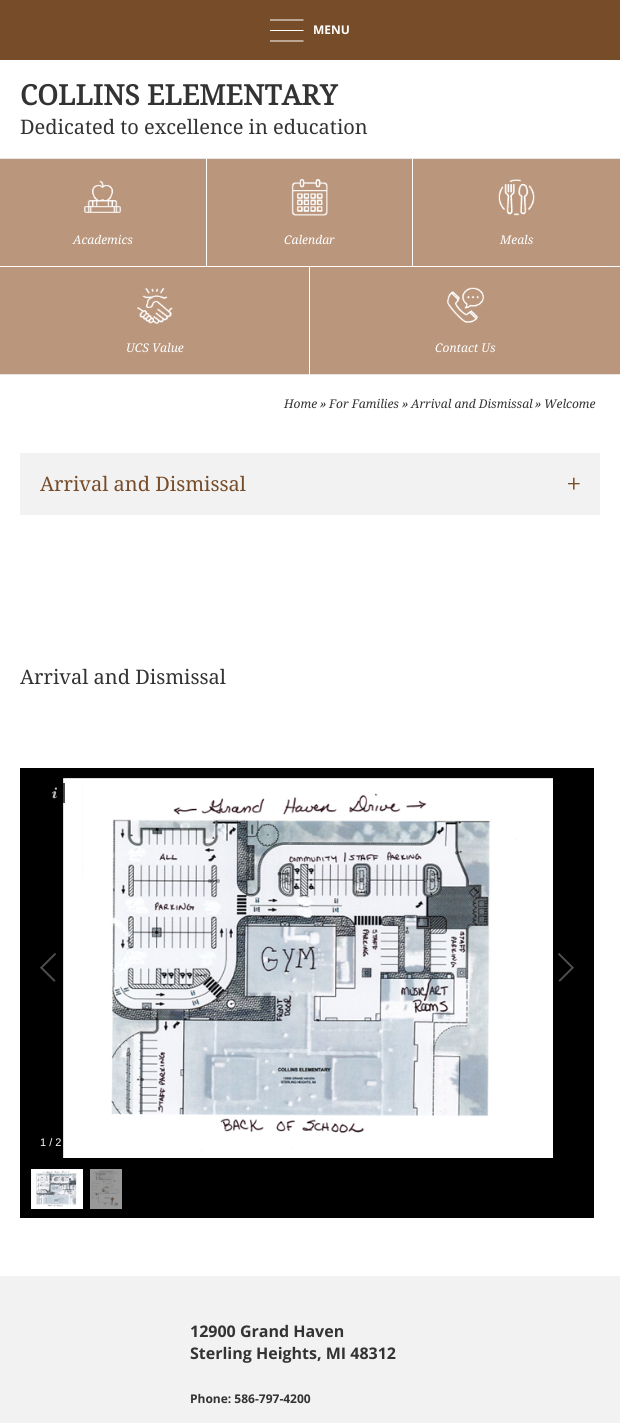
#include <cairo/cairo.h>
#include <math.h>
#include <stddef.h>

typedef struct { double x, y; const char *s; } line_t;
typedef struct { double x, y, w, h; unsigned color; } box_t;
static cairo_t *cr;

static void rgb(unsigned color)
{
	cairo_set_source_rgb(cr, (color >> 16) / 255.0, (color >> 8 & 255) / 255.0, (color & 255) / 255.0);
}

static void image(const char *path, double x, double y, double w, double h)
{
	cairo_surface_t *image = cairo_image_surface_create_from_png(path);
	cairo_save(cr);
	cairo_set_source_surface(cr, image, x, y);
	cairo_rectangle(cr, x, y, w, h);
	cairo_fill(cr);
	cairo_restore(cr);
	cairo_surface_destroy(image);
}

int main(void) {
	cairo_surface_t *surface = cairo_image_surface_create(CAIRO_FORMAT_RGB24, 620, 1423);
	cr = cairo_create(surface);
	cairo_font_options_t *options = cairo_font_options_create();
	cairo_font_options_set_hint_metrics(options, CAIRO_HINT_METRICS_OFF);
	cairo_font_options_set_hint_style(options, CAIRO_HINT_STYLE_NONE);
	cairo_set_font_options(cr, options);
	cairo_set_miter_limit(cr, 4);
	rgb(0xffffff);
	cairo_paint(cr);
	rgb(0x774c29);
	cairo_rectangle(cr, 0, 0, 620, 60);
	cairo_fill(cr);
	rgb(0xffffff);
	cairo_new_path(cr);
	cairo_move_to(cr, 270, 19.5);
	cairo_line_to(cr, 303.5, 19.5);
	cairo_line_to(cr, 303.5, 20.5);
	cairo_line_to(cr, 270, 20.5);
	cairo_close_path(cr);
	cairo_move_to(cr, 270, 30);
	cairo_line_to(cr, 303.5, 30);
	cairo_line_to(cr, 303.5, 31);
	cairo_line_to(cr, 270, 31);
	cairo_close_path(cr);
	cairo_move_to(cr, 270, 40.5);
	cairo_line_to(cr, 303.5, 40.5);
	cairo_line_to(cr, 303.5, 41.5);
	cairo_line_to(cr, 270, 41.5);
	cairo_close_path(cr);
	cairo_fill(cr);
	{
		static const box_t items[] = {
			{0, 374, 620, 1, 0xe6e6e6},
			{0, 159, 620, 215, 0xba967c},
			{0, 158, 620, 1, 0xe6e6e6},
			{206, 159, 1, 107, 0xffffff},
		};
		for (size_t i = 0; i < sizeof items / sizeof *items; i++) {
			rgb(items[i].color);
			cairo_rectangle(cr, items[i].x, items[i].y, items[i].w, items[i].h);
			cairo_fill(cr);
		}
	}
	image("img/1.png", 84, 180, 37, 33);
	cairo_rectangle(cr, 412, 159, 1, 107);
	cairo_fill(cr);
	image("img/2.png", 291, 179, 37, 37);
	image("img/3.png", 498, 179, 37, 37);
	cairo_rectangle(cr, 0, 266, 620, 1);
	cairo_fill(cr);
	cairo_rectangle(cr, 309, 266, 1, 108);
	cairo_fill(cr);
	image("img/4.png", 136, 287, 37, 37);
	image("img/5.png", 447, 287, 37, 36);
	image("img/6.png", 320, 402, 6, 6);
	image("img/6.png", 402, 402, 6, 6);
	image("img/6.png", 535, 402, 6, 6);
	rgb(0xf2f2f2);
	cairo_rectangle(cr, 20, 453, 580, 62);
	cairo_fill(cr);
	image("img/7.png", 568, 477, 12, 13);
	rgb(0x000000);
	cairo_rectangle(cr, 20, 768, 574, 450);
	cairo_fill(cr);
	image("img/9.png", 63, 778, 490, 380);
	cairo_set_source_rgba(cr, 0, 0, 0, 0.7);
	cairo_rectangle(cr, 63, 783, 2, 20);
	cairo_fill(cr);
	image("img/8.png", 51, 787, 6, 12);
	image("img/10.png", 40, 953, 16, 29);
	image("img/11.png", 558, 953, 16, 29);
	image("img/12.png", 31, 1169, 52, 40);
	image("img/13.png", 90, 1169, 32, 40);
	rgb(0xf2f2f2);
	cairo_rectangle(cr, 0, 1276, 620, 147);
	cairo_fill(cr);
	cairo_select_font_face(cr, "Open Sans", CAIRO_FONT_SLANT_NORMAL, CAIRO_FONT_WEIGHT_BOLD);
	cairo_set_font_size(cr, 12);
	rgb(0xffffff);
	cairo_move_to(cr, 313, 34);
	cairo_show_text(cr, "MENU");
	cairo_select_font_face(cr, "Noto Serif", CAIRO_FONT_SLANT_NORMAL, CAIRO_FONT_WEIGHT_BOLD);
	cairo_set_font_size(cr, 28);
	rgb(0x333333);
	cairo_move_to(cr, 20, 105);
	cairo_show_text(cr, "COLLINS ELEMENTARY");
	cairo_select_font_face(cr, "Noto Serif", CAIRO_FONT_SLANT_NORMAL, CAIRO_FONT_WEIGHT_NORMAL);
	cairo_set_font_size(cr, 20);
	cairo_move_to(cr, 20, 134);
	cairo_show_text(cr, "Dedicated to excellence in education");
	cairo_select_font_face(cr, "Noto Serif", CAIRO_FONT_SLANT_ITALIC, CAIRO_FONT_WEIGHT_NORMAL);
	cairo_set_font_size(cr, 12);
	rgb(0xffffff);
	{
		static const line_t items[] = {
			{73, 244, "Academics"},
			{284, 244, "Calendar"},
			{500, 244, "Meals"},
			{126, 352, "UCS Value"},
			{435, 352, "Contact Us"},
		};
		for (size_t i = 0; i < sizeof items / sizeof *items; i++) {
			cairo_move_to(cr, items[i].x, items[i].y);
			cairo_show_text(cr, items[i].s);
		}
	}
	rgb(0x333333);
	{
		static const line_t items[] = {
			{284, 408, "Home"},
			{329, 408, "For Families"},
			{411, 408, "Arrival and Dismissal"},
			{544, 408, "Welcome"},
		};
		for (size_t i = 0; i < sizeof items / sizeof *items; i++) {
			cairo_move_to(cr, items[i].x, items[i].y);
			cairo_show_text(cr, items[i].s);
		}
	}
	cairo_select_font_face(cr, "Noto Serif", CAIRO_FONT_SLANT_NORMAL, CAIRO_FONT_WEIGHT_NORMAL);
	cairo_set_font_size(cr, 20);
	rgb(0x774c29);
	cairo_move_to(cr, 40, 491);
	cairo_show_text(cr, "Arrival and Dismissal");
	rgb(0x333333);
	cairo_move_to(cr, 20, 684);
	cairo_show_text(cr, "Arrival and Dismissal");
	cairo_select_font_face(cr, "Liberation Sans", CAIRO_FONT_SLANT_NORMAL, CAIRO_FONT_WEIGHT_NORMAL);
	cairo_set_font_size(cr, 11);
	rgb(0xffffff);
	cairo_move_to(cr, 40, 1146);
	cairo_show_text(cr, "1 / 2");
	cairo_select_font_face(cr, "Open Sans", CAIRO_FONT_SLANT_NORMAL, CAIRO_FONT_WEIGHT_BOLD);
	cairo_set_font_size(cr, 16);
	rgb(0x333333);
	cairo_move_to(cr, 190, 1337);
	cairo_show_text(cr, "12900 Grand Haven");
	cairo_move_to(cr, 190, 1359);
	cairo_show_text(cr, "Sterling Heights, MI 48312");
	cairo_set_font_size(cr, 12);
	cairo_move_to(cr, 190, 1403);
	cairo_show_text(cr, "Phone: 586-797-4200");
	cairo_surface_write_to_png(surface, "page.png");
	cairo_font_options_destroy(options);
	cairo_destroy(cr);
	cairo_surface_destroy(surface);
	return 0;
}
